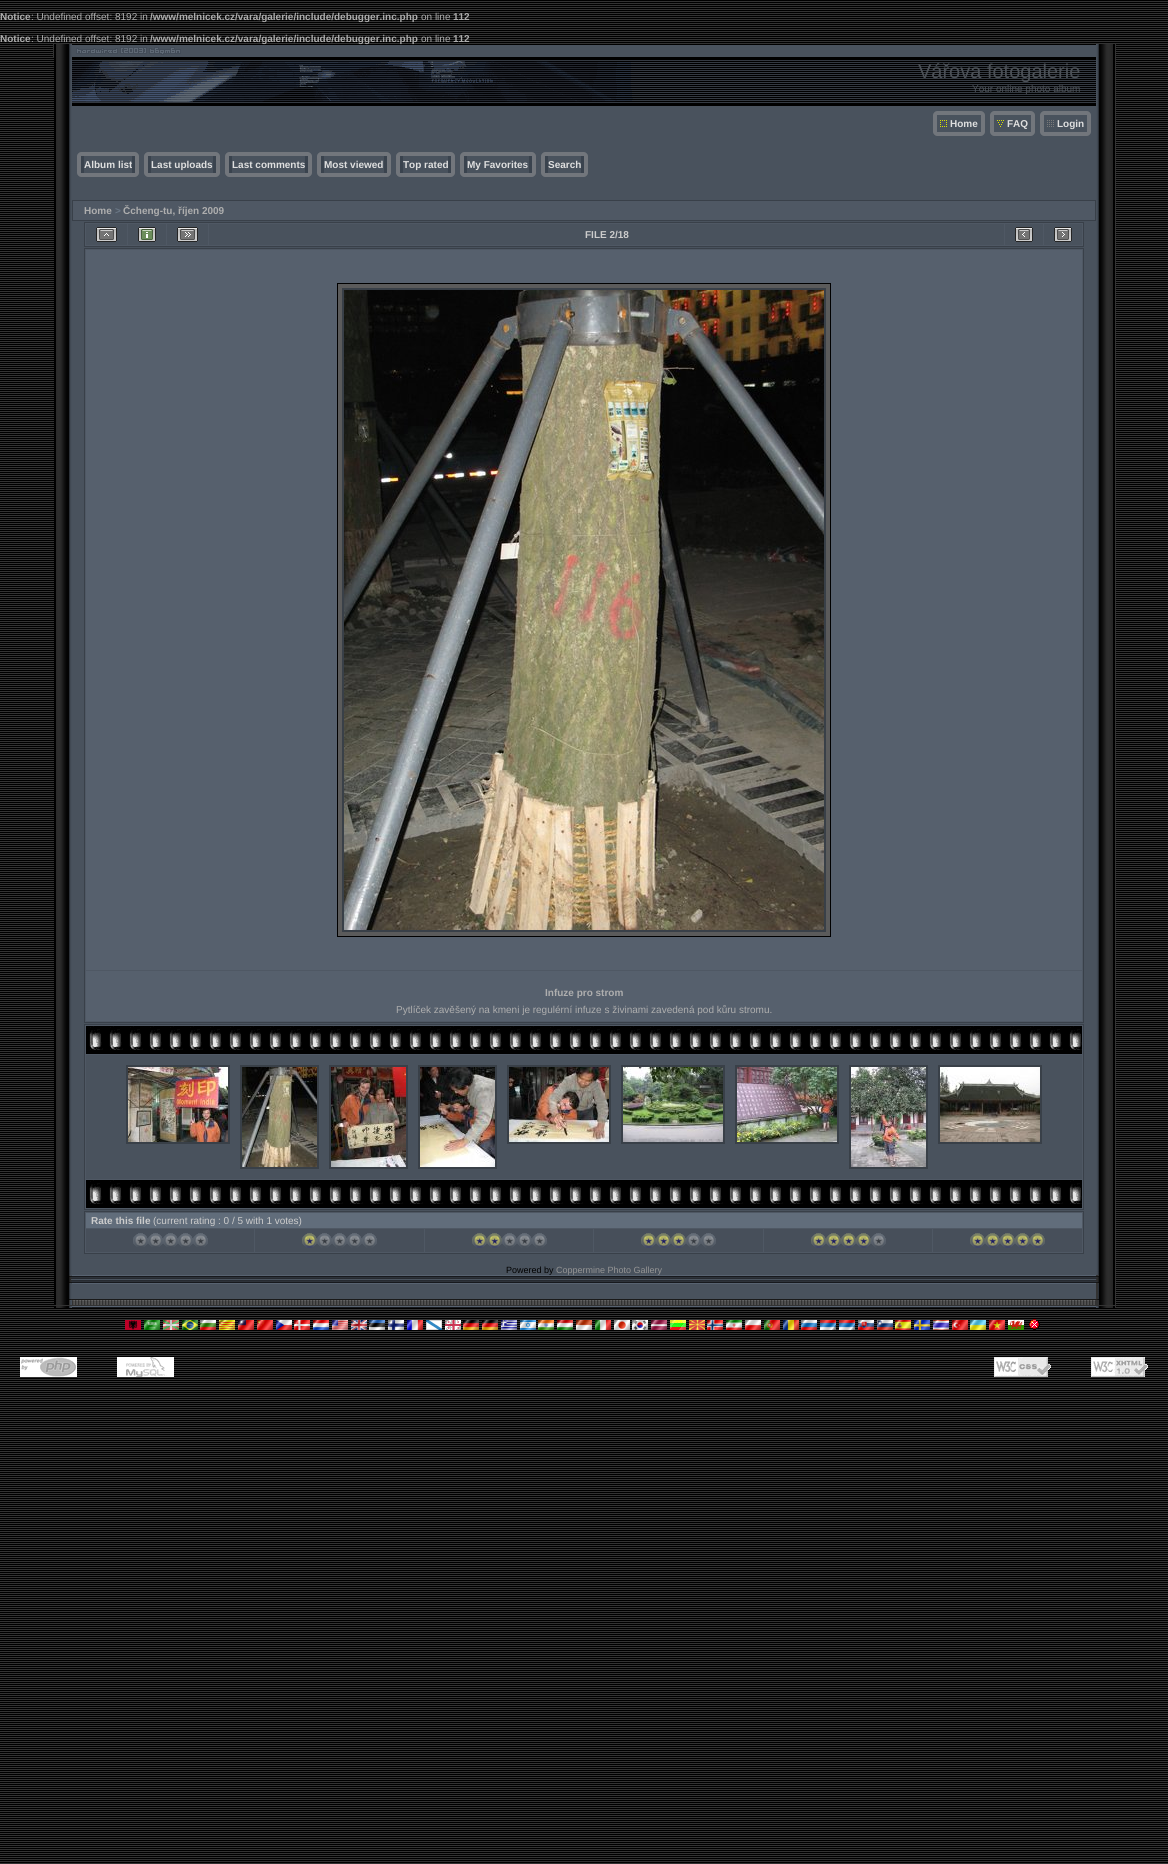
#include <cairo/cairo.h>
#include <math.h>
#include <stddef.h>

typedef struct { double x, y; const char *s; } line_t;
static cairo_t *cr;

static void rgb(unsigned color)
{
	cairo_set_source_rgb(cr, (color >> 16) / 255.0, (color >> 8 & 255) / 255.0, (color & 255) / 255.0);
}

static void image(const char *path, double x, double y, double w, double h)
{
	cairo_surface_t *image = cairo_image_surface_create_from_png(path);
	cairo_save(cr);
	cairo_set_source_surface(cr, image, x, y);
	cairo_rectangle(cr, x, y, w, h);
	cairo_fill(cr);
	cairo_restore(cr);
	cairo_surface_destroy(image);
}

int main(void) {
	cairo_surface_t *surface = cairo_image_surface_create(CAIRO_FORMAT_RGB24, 1168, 1864);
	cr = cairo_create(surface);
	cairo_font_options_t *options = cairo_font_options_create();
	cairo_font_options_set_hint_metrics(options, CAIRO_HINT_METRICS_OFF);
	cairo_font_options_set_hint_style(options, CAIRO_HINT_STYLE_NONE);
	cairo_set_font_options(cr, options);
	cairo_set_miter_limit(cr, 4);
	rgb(0x000000);
	cairo_paint(cr);
	image("img/1.png", 0, 1, 1168, 1863);
	rgb(0x333333);
	cairo_rectangle(cr, 53, 44, 1, 13);
	cairo_fill(cr);
	image("img/2.png", 54, 44, 18, 62);
	image("img/3.png", 72, 45, 1024, 61);
	image("img/4.png", 72, 47, 561, 55);
	image("img/5.png", 1096, 44, 19, 62);
	cairo_rectangle(cr, 1115, 44, 1, 1263);
	cairo_fill(cr);
	image("img/6.png", 54, 106, 18, 1169);
	rgb(0x49525d);
	cairo_rectangle(cr, 72, 106, 1024, 1169);
	cairo_fill(cr);
	image("img/7.png", 933, 111, 17, 25);
	image("img/8.png", 950, 111, 28, 25);
	image("img/9.png", 978, 111, 7, 25);
	image("img/10.png", 990, 111, 17, 25);
	image("img/11.png", 1007, 111, 21, 25);
	image("img/9.png", 1028, 111, 7, 25);
	image("img/12.png", 1040, 111, 17, 25);
	image("img/13.png", 1057, 111, 27, 25);
	image("img/9.png", 1084, 111, 7, 25);
	image("img/14.png", 77, 152, 7, 25);
	image("img/15.png", 84, 152, 48, 25);
	image("img/14.png", 144, 152, 7, 25);
	image("img/17.png", 151, 152, 62, 25);
	image("img/16.png", 213, 152, 7, 25);
	image("img/14.png", 225, 152, 7, 25);
	image("img/18.png", 232, 152, 73, 25);
	image("img/16.png", 305, 152, 7, 25);
	image("img/14.png", 317, 152, 7, 25);
	image("img/19.png", 324, 152, 60, 25);
	image("img/16.png", 384, 152, 7, 25);
	image("img/14.png", 396, 152, 7, 25);
	image("img/20.png", 403, 152, 45, 25);
	image("img/16.png", 448, 152, 7, 25);
	image("img/14.png", 460, 152, 7, 25);
	image("img/17.png", 467, 152, 62, 25);
	image("img/16.png", 529, 152, 7, 25);
	image("img/14.png", 541, 152, 7, 25);
	image("img/21.png", 548, 152, 33, 25);
	image("img/16.png", 581, 152, 7, 25);
	rgb(0x4f5864);
	cairo_rectangle(cr, 72.5, 200.5, 1023, 20);
	cairo_fill_preserve(cr);
	rgb(0x394049);
	cairo_set_line_width(cr, 1);
	cairo_stroke(cr);
	rgb(0x4f5864);
	cairo_rectangle(cr, 84.5, 222.5, 999, 24);
	cairo_fill_preserve(cr);
	rgb(0x394049);
	cairo_stroke(cr);
	rgb(0x49525d);
	cairo_rectangle(cr, 86, 224, 41, 21);
	cairo_fill(cr);
	image("img/22.png", 96, 227, 21, 15);
	cairo_rectangle(cr, 128, 224, 38, 21);
	cairo_fill(cr);
	image("img/23.png", 138, 227, 18, 15);
	cairo_rectangle(cr, 167, 224, 41, 21);
	cairo_fill(cr);
	image("img/24.png", 177, 227, 21, 15);
	cairo_rectangle(cr, 209, 224, 795, 21);
	cairo_fill(cr);
	cairo_rectangle(cr, 1005, 224, 38, 21);
	cairo_fill(cr);
	image("img/25.png", 1015, 227, 18, 15);
	cairo_rectangle(cr, 1044, 224, 38, 21);
	cairo_fill(cr);
	image("img/26.png", 1054, 227, 18, 15);
	rgb(0x4f5864);
	cairo_rectangle(cr, 84.5, 248.5, 999, 774);
	cairo_fill_preserve(cr);
	rgb(0x394049);
	cairo_stroke(cr);
	rgb(0x56606d);
	cairo_rectangle(cr, 86, 250, 996, 720);
	cairo_fill(cr);
	rgb(0x5b5b5b);
	cairo_rectangle(cr, 337.5, 283.5, 493, 653);
	cairo_fill_preserve(cr);
	rgb(0x000000);
	cairo_stroke(cr);
	cairo_rectangle(cr, 343, 289, 482, 642);
	rgb(0x394048);
	cairo_set_line_width(cr, 2);
	cairo_stroke(cr);
	image("img/27.png", 344, 290, 480, 640);
	rgb(0x56606d);
	cairo_rectangle(cr, 86, 971, 996, 50);
	cairo_fill(cr);
	rgb(0x4f5864);
	cairo_rectangle(cr, 84.5, 1024.5, 999, 185);
	cairo_fill_preserve(cr);
	rgb(0x394049);
	cairo_set_line_width(cr, 1);
	cairo_stroke(cr);
	image("img/28.png", 86, 1026, 996, 28);
	rgb(0x49525d);
	cairo_rectangle(cr, 86, 1055, 996, 124);
	cairo_fill(cr);
	cairo_rectangle(cr, 127, 1066, 102, 77);
	rgb(0x394048);
	cairo_set_line_width(cr, 2);
	cairo_stroke(cr);
	image("img/29.png", 128, 1067, 100, 75);
	cairo_rectangle(cr, 241, 1066, 77, 102);
	cairo_stroke(cr);
	image("img/30.png", 242, 1067, 75, 100);
	cairo_rectangle(cr, 330, 1066, 77, 102);
	cairo_stroke(cr);
	image("img/31.png", 331, 1067, 75, 100);
	cairo_rectangle(cr, 419, 1066, 77, 102);
	cairo_stroke(cr);
	image("img/32.png", 420, 1067, 75, 100);
	cairo_rectangle(cr, 508, 1066, 102, 77);
	cairo_stroke(cr);
	image("img/33.png", 509, 1067, 100, 75);
	cairo_rectangle(cr, 622, 1066, 102, 77);
	cairo_stroke(cr);
	image("img/34.png", 623, 1067, 100, 75);
	cairo_rectangle(cr, 736, 1066, 102, 77);
	cairo_stroke(cr);
	image("img/35.png", 737, 1067, 100, 75);
	cairo_rectangle(cr, 850, 1066, 77, 102);
	cairo_stroke(cr);
	image("img/36.png", 851, 1067, 75, 100);
	cairo_rectangle(cr, 939, 1066, 102, 77);
	cairo_stroke(cr);
	image("img/37.png", 940, 1067, 100, 75);
	image("img/28.png", 86, 1180, 996, 28);
	rgb(0x4f5864);
	cairo_rectangle(cr, 84.5, 1211.5, 999, 42);
	cairo_fill_preserve(cr);
	rgb(0x394049);
	cairo_set_line_width(cr, 1);
	cairo_stroke(cr);
	rgb(0x616d7b);
	cairo_rectangle(cr, 86, 1213, 996, 15);
	cairo_fill(cr);
	rgb(0x474f5a);
	cairo_rectangle(cr, 86, 1229, 168, 23);
	cairo_fill(cr);
	image("img/38.png", 133, 1233, 75, 14);
	cairo_rectangle(cr, 255, 1229, 169, 23);
	cairo_fill(cr);
	image("img/39.png", 302, 1233, 75, 15);
	cairo_rectangle(cr, 425, 1229, 168, 23);
	cairo_fill(cr);
	image("img/40.png", 472, 1233, 75, 15);
	cairo_rectangle(cr, 594, 1229, 169, 23);
	cairo_fill(cr);
	image("img/41.png", 641, 1233, 75, 15);
	cairo_rectangle(cr, 764, 1229, 168, 23);
	cairo_fill(cr);
	image("img/42.png", 811, 1233, 75, 15);
	cairo_rectangle(cr, 933, 1229, 149, 23);
	cairo_fill(cr);
	image("img/43.png", 970, 1233, 75, 15);
	image("img/44.png", 1096, 106, 19, 1169);
	image("img/45.png", 54, 1306, 18, 2);
	image("img/46.png", 54, 1275, 18, 31);
	image("img/47.png", 72, 1275, 1024, 33);
	image("img/48.png", 1096, 1306, 19, 2);
	image("img/49.png", 1096, 1275, 19, 31);
	image("img/50.png", 125, 1320, 16, 10);
	image("img/51.png", 144, 1320, 16, 10);
	image("img/52.png", 163, 1320, 16, 10);
	image("img/53.png", 182, 1320, 16, 10);
	image("img/54.png", 200, 1320, 16, 10);
	image("img/55.png", 219, 1320, 16, 10);
	image("img/56.png", 238, 1320, 16, 10);
	image("img/57.png", 257, 1320, 16, 10);
	image("img/58.png", 276, 1320, 16, 10);
	image("img/59.png", 294, 1320, 16, 10);
	image("img/60.png", 313, 1320, 16, 10);
	image("img/61.png", 332, 1320, 16, 10);
	image("img/62.png", 351, 1320, 16, 10);
	image("img/63.png", 369, 1320, 16, 10);
	image("img/64.png", 388, 1320, 16, 10);
	image("img/65.png", 407, 1320, 16, 10);
	image("img/66.png", 426, 1320, 16, 10);
	image("img/67.png", 445, 1320, 16, 10);
	image("img/68.png", 463, 1320, 16, 10);
	image("img/68.png", 482, 1320, 16, 10);
	image("img/69.png", 501, 1320, 16, 10);
	image("img/70.png", 520, 1320, 16, 10);
	image("img/71.png", 538, 1320, 16, 10);
	image("img/72.png", 557, 1320, 16, 10);
	image("img/73.png", 576, 1320, 16, 10);
	image("img/74.png", 595, 1320, 16, 10);
	image("img/75.png", 614, 1320, 16, 10);
	image("img/76.png", 632, 1320, 16, 10);
	image("img/77.png", 651, 1320, 16, 10);
	image("img/78.png", 670, 1320, 16, 10);
	image("img/79.png", 689, 1320, 16, 10);
	image("img/80.png", 707, 1320, 16, 10);
	image("img/81.png", 726, 1320, 16, 10);
	image("img/82.png", 745, 1320, 16, 10);
	image("img/83.png", 764, 1320, 16, 10);
	image("img/84.png", 783, 1320, 16, 10);
	image("img/85.png", 801, 1320, 16, 10);
	image("img/86.png", 820, 1320, 16, 10);
	image("img/86.png", 839, 1320, 16, 10);
	image("img/87.png", 858, 1320, 16, 10);
	image("img/88.png", 877, 1320, 16, 10);
	image("img/89.png", 895, 1320, 16, 10);
	image("img/90.png", 914, 1320, 16, 10);
	image("img/91.png", 933, 1320, 16, 10);
	image("img/92.png", 952, 1320, 16, 10);
	image("img/93.png", 970, 1320, 16, 10);
	image("img/94.png", 989, 1320, 16, 10);
	image("img/95.png", 1008, 1320, 16, 10);
	image("img/96.png", 1029, 1319, 11, 11);
	image("img/97.png", 20, 1357, 57, 20);
	image("img/98.png", 117, 1357, 57, 20);
	image("img/99.png", 994, 1357, 57, 20);
	image("img/100.png", 1091, 1357, 57, 20);
	cairo_select_font_face(cr, "Liberation Sans", CAIRO_FONT_SLANT_NORMAL, CAIRO_FONT_WEIGHT_BOLD);
	cairo_set_font_size(cr, 10);
	rgb(0xaeaeae);
	cairo_move_to(cr, 0, 20);
	cairo_show_text(cr, "Notice");
	cairo_select_font_face(cr, "Liberation Sans", CAIRO_FONT_SLANT_NORMAL, CAIRO_FONT_WEIGHT_NORMAL);
	cairo_move_to(cr, 31, 20);
	cairo_show_text(cr, ": Undefined offset: 8192 in");
	cairo_select_font_face(cr, "Liberation Sans", CAIRO_FONT_SLANT_NORMAL, CAIRO_FONT_WEIGHT_BOLD);
	cairo_move_to(cr, 150, 20);
	cairo_show_text(cr, "/www/melnicek.cz/vara/galerie/include/debugger.inc.php");
	cairo_select_font_face(cr, "Liberation Sans", CAIRO_FONT_SLANT_NORMAL, CAIRO_FONT_WEIGHT_NORMAL);
	cairo_move_to(cr, 421, 20);
	cairo_show_text(cr, "on line");
	cairo_select_font_face(cr, "Liberation Sans", CAIRO_FONT_SLANT_NORMAL, CAIRO_FONT_WEIGHT_BOLD);
	cairo_move_to(cr, 453, 20);
	cairo_show_text(cr, "112");
	cairo_move_to(cr, 0, 42);
	cairo_show_text(cr, "Notice");
	cairo_select_font_face(cr, "Liberation Sans", CAIRO_FONT_SLANT_NORMAL, CAIRO_FONT_WEIGHT_NORMAL);
	cairo_move_to(cr, 31, 42);
	cairo_show_text(cr, ": Undefined offset: 8192 in");
	cairo_select_font_face(cr, "Liberation Sans", CAIRO_FONT_SLANT_NORMAL, CAIRO_FONT_WEIGHT_BOLD);
	cairo_move_to(cr, 150, 42);
	cairo_show_text(cr, "/www/melnicek.cz/vara/galerie/include/debugger.inc.php");
	cairo_select_font_face(cr, "Liberation Sans", CAIRO_FONT_SLANT_NORMAL, CAIRO_FONT_WEIGHT_NORMAL);
	cairo_move_to(cr, 421, 42);
	cairo_show_text(cr, "on line");
	cairo_select_font_face(cr, "Liberation Sans", CAIRO_FONT_SLANT_NORMAL, CAIRO_FONT_WEIGHT_BOLD);
	cairo_move_to(cr, 453, 42);
	cairo_show_text(cr, "112");
	cairo_select_font_face(cr, "Liberation Sans", CAIRO_FONT_SLANT_NORMAL, CAIRO_FONT_WEIGHT_NORMAL);
	cairo_set_font_size(cr, 20);
	rgb(0x4c5157);
	cairo_move_to(cr, 918, 78);
	cairo_show_text(cr, "Vářova fotogalerie");
	cairo_set_font_size(cr, 10);
	cairo_move_to(cr, 972, 92);
	cairo_show_text(cr, "Your online photo album");
	cairo_select_font_face(cr, "Liberation Sans", CAIRO_FONT_SLANT_NORMAL, CAIRO_FONT_WEIGHT_BOLD);
	rgb(0xdfdfdf);
	{
		static const line_t items[] = {
			{950, 127, "Home"},
			{1007, 127, "FAQ"},
			{1057, 127, "Login"},
			{84, 168, "Album list"},
		};
		for (size_t i = 0; i < sizeof items / sizeof *items; i++) {
			cairo_move_to(cr, items[i].x, items[i].y);
			cairo_show_text(cr, items[i].s);
		}
	}
	image("img/16.png", 132, 152, 7, 25);
	{
		static const line_t items[] = {
			{151, 168, "Last uploads"},
			{232, 168, "Last comments"},
			{324, 168, "Most viewed"},
			{403, 168, "Top rated"},
			{467, 168, "My Favorites"},
			{548, 168, "Search"},
		};
		for (size_t i = 0; i < sizeof items / sizeof *items; i++) {
			cairo_move_to(cr, items[i].x, items[i].y);
			cairo_show_text(cr, items[i].s);
		}
	}
	rgb(0xaeaeae);
	cairo_move_to(cr, 84, 214);
	cairo_show_text(cr, "Home");
	rgb(0x6a7786);
	cairo_move_to(cr, 115, 214);
	cairo_show_text(cr, ">");
	rgb(0xaeaeae);
	cairo_move_to(cr, 123, 214);
	cairo_show_text(cr, "Čcheng-tu, říjen 2009");
	rgb(0xcccccc);
	cairo_move_to(cr, 585, 238);
	cairo_show_text(cr, "FILE 2/18");
	rgb(0xaeaeae);
	cairo_move_to(cr, 545, 996);
	cairo_show_text(cr, "Infuze pro strom");
	cairo_select_font_face(cr, "Liberation Sans", CAIRO_FONT_SLANT_NORMAL, CAIRO_FONT_WEIGHT_NORMAL);
	cairo_move_to(cr, 396, 1013);
	cairo_show_text(cr, "Pytlíček zavěšený na kmeni je regulérní infuze s živinami zavedená pod kůru stromu.");
	cairo_select_font_face(cr, "Liberation Sans", CAIRO_FONT_SLANT_NORMAL, CAIRO_FONT_WEIGHT_BOLD);
	rgb(0xcccccc);
	cairo_move_to(cr, 91, 1224);
	cairo_show_text(cr, "Rate this file");
	cairo_select_font_face(cr, "Liberation Sans", CAIRO_FONT_SLANT_NORMAL, CAIRO_FONT_WEIGHT_NORMAL);
	cairo_move_to(cr, 153, 1224);
	cairo_show_text(cr, "(current rating : 0 / 5 with 1 votes)");
	cairo_set_font_size(cr, 9);
	rgb(0x000000);
	cairo_move_to(cr, 506, 1273);
	cairo_show_text(cr, "Powered by");
	rgb(0x949494);
	cairo_move_to(cr, 556, 1273);
	cairo_show_text(cr, "Coppermine Photo Gallery");
	cairo_surface_write_to_png(surface, "page.png");
	cairo_font_options_destroy(options);
	cairo_destroy(cr);
	cairo_surface_destroy(surface);
	return 0;
}
